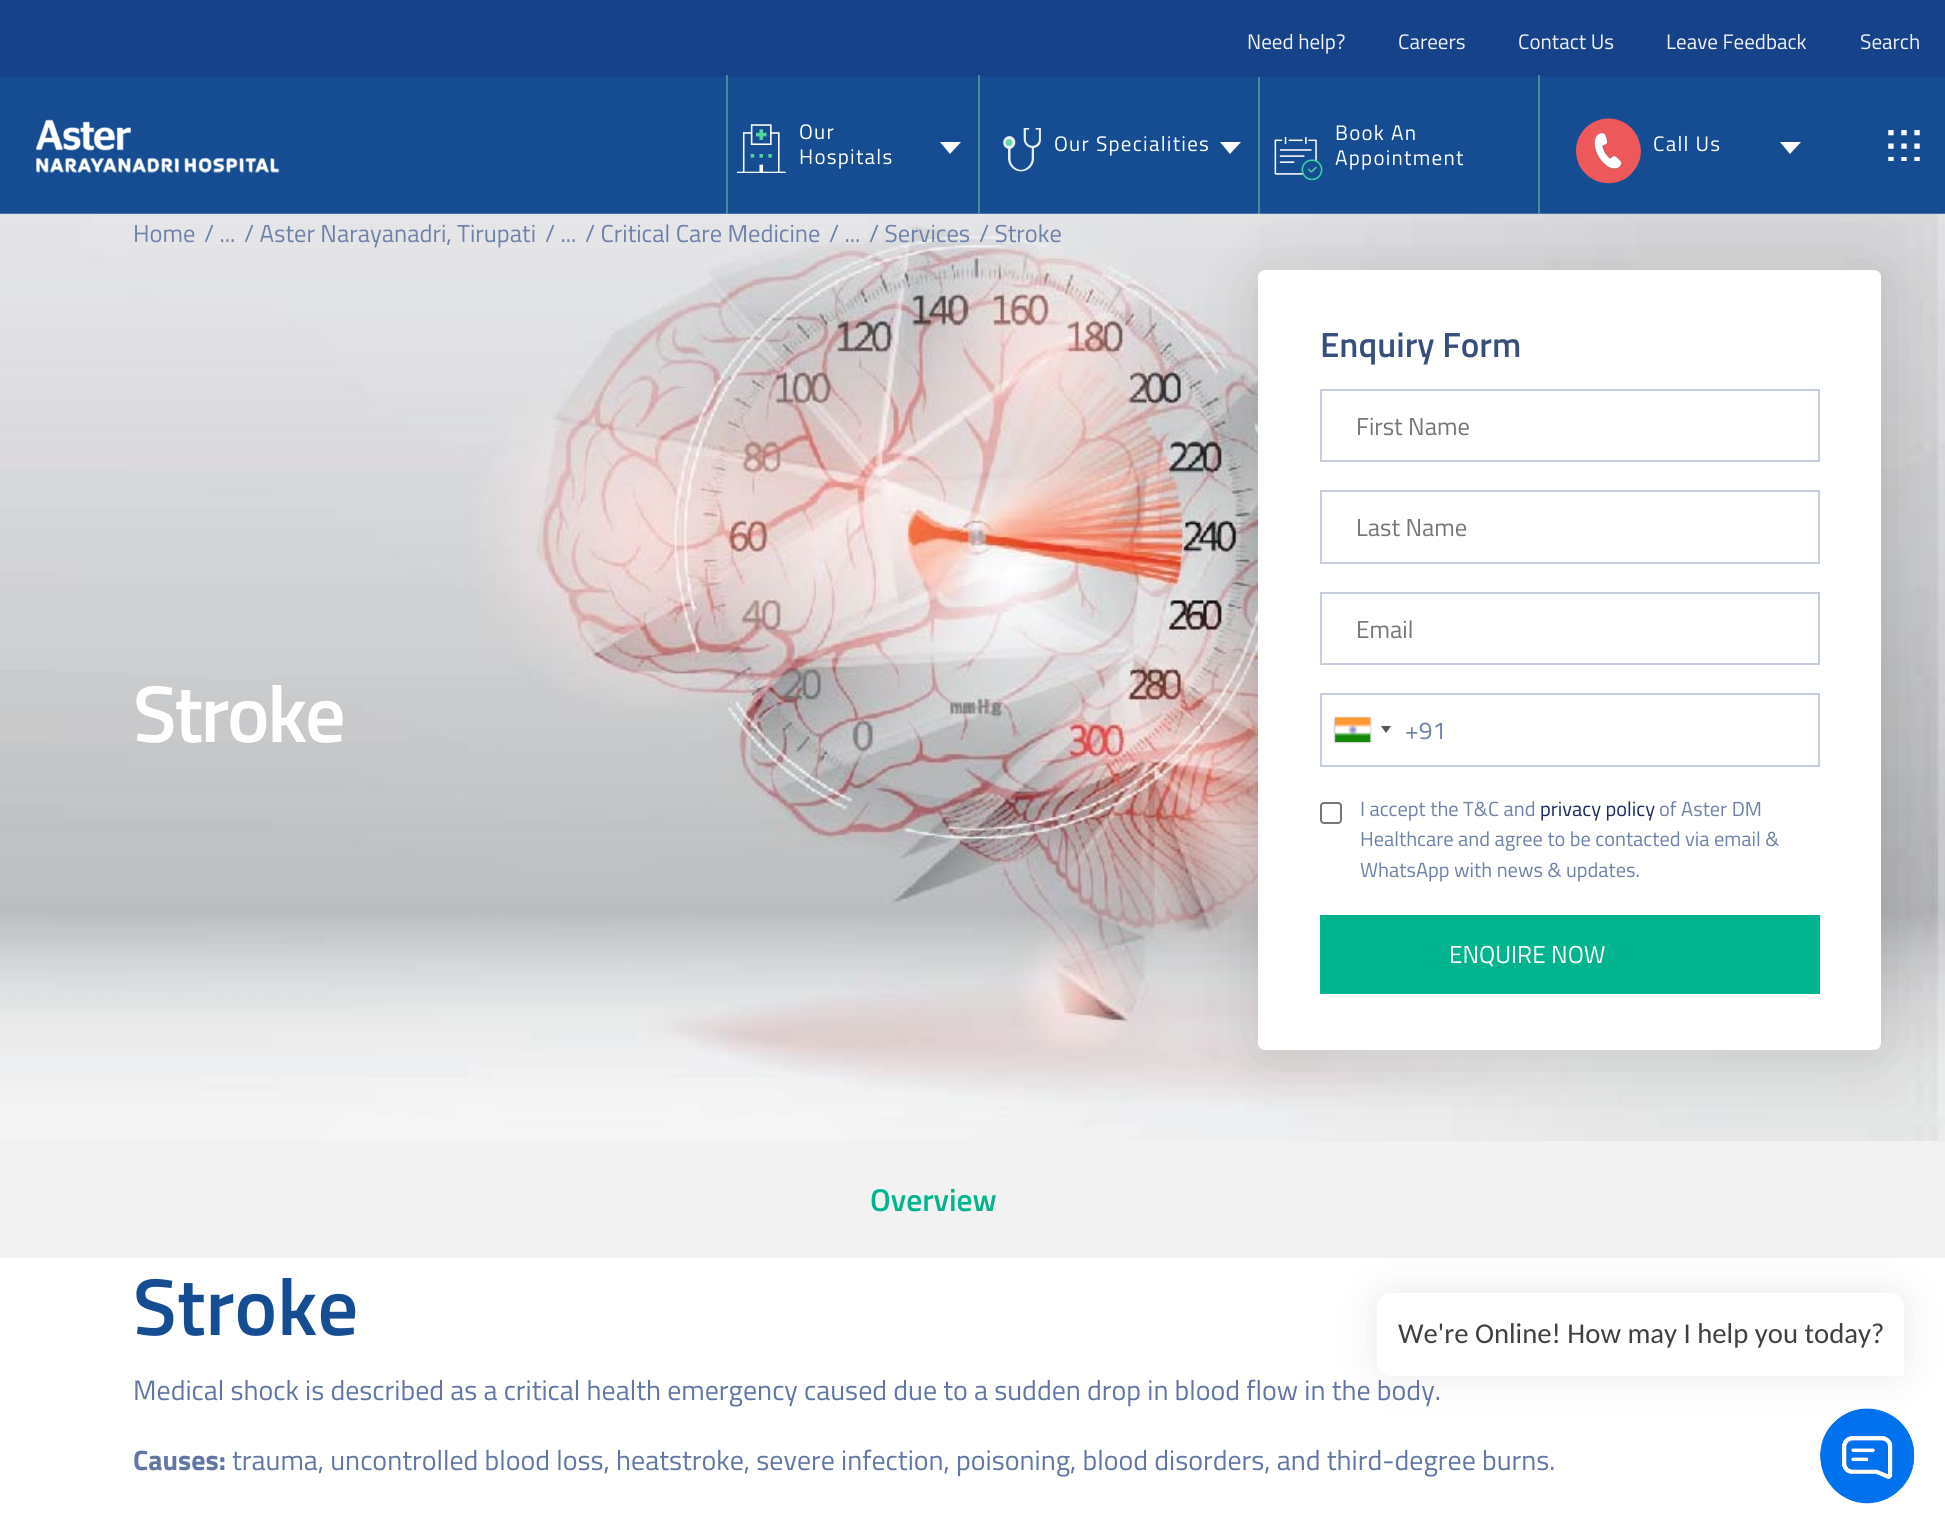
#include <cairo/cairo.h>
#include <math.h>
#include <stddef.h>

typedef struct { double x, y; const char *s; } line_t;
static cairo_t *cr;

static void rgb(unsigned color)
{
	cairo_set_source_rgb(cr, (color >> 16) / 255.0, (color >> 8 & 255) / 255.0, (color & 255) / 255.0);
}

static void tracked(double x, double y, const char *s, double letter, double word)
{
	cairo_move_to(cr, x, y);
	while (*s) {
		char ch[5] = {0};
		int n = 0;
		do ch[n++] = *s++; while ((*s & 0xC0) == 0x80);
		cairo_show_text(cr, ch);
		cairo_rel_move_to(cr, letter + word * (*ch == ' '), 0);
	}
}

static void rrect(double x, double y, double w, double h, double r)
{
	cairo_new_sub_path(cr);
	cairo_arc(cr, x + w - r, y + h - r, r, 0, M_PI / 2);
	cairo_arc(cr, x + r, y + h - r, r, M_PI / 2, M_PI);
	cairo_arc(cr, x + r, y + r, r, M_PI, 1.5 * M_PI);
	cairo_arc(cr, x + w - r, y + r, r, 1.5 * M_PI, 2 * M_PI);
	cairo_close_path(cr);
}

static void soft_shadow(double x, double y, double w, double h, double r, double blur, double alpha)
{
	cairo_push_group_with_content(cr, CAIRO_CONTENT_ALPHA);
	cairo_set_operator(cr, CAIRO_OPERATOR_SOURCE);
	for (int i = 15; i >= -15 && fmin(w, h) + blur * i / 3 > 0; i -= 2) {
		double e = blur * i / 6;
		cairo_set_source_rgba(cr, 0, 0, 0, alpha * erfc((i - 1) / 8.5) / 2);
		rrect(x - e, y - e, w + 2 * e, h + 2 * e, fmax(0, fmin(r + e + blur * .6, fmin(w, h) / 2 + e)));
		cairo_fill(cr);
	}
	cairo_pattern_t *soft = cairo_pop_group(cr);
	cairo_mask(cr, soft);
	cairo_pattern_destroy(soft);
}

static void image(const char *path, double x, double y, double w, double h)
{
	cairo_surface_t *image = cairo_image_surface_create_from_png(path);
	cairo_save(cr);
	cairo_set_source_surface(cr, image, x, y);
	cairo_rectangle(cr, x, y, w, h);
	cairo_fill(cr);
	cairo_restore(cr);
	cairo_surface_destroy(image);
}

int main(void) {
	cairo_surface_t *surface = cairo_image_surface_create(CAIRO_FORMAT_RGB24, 1945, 1522);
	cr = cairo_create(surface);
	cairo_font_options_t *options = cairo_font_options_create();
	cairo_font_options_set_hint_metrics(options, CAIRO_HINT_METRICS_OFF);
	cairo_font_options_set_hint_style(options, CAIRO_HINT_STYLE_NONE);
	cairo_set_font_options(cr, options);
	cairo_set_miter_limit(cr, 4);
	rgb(0xffffff);
	cairo_paint(cr);
	rgb(0x164d92);
	cairo_rectangle(cr, 0, 77, 1945, 137);
	cairo_fill(cr);
	rgb(0x164289);
	cairo_rectangle(cr, 0, 0, 1945, 77);
	cairo_fill(cr);
	image("img/1.png", 36, 119, 244, 54);
	rgb(0x468c9a);
	cairo_rectangle(cr, 1258, 77, 2, 137);
	cairo_fill(cr);
	image("img/7.png", 0, 213, 1945, 928);
	cairo_rectangle(cr, 726, 75, 2, 139);
	cairo_fill(cr);
	image("img/2.png", 737, 124, 49, 49);
	rgb(0xffffff);
	cairo_new_path(cr);
	cairo_move_to(cr, 940, 142);
	cairo_line_to(cr, 961, 142);
	cairo_line_to(cr, 950, 154);
	cairo_close_path(cr);
	cairo_fill(cr);
	rgb(0x468c9a);
	cairo_rectangle(cr, 978, 75, 2, 139);
	cairo_fill(cr);
	image("img/3.png", 1003, 128, 38, 44);
	rgb(0xffffff);
	cairo_new_path(cr);
	cairo_move_to(cr, 1220, 142);
	cairo_line_to(cr, 1241, 142);
	cairo_line_to(cr, 1230, 154);
	cairo_close_path(cr);
	cairo_fill(cr);
	image("img/4.png", 1274, 137, 49, 43);
	rgb(0xf2f2f2);
	cairo_rectangle(cr, 0, 1141, 1945, 117);
	cairo_fill(cr);
	rgb(0x000000);
	soft_shadow(1258, 275, 623, 780, 7, 35, 0.13);
	rgb(0x468c9a);
	cairo_rectangle(cr, 1538, 75, 2, 139);
	cairo_fill(cr);
	image("img/5.png", 1576, 118, 65, 66);
	rgb(0xffffff);
	cairo_new_path(cr);
	cairo_move_to(cr, 1780, 142);
	cairo_line_to(cr, 1801, 142);
	cairo_line_to(cr, 1790, 154);
	cairo_close_path(cr);
	cairo_fill(cr);
	image("img/6.png", 1888, 130, 32, 31);
	rrect(1258, 270, 623, 780, 7);
	cairo_fill(cr);
	cairo_rectangle(cr, 1321, 390, 498, 71);
	rgb(0xc6cedd);
	cairo_stroke(cr);
	cairo_rectangle(cr, 1321, 491, 498, 72);
	cairo_stroke(cr);
	cairo_rectangle(cr, 1321, 593, 498, 71);
	cairo_stroke(cr);
	cairo_rectangle(cr, 1321, 694, 498, 72);
	cairo_stroke(cr);
	rgb(0x888888);
	soft_shadow(1335, 718, 35, 24, 0, 1, 1);
	image("img/8.png", 1335, 717, 36, 25);
	rgb(0x555555);
	cairo_new_path(cr);
	cairo_move_to(cr, 1381, 726);
	cairo_line_to(cr, 1391, 726);
	cairo_line_to(cr, 1386, 733);
	cairo_close_path(cr);
	cairo_fill(cr);
	rrect(1321, 803, 20, 20, 3);
	rgb(0x767676);
	cairo_stroke(cr);
	rgb(0x00b48d);
	cairo_rectangle(cr, 1320, 915, 500, 79);
	cairo_fill(cr);
	rgb(0x403f42);
	soft_shadow(1377, 1293, 527, 83, 14, 21, 0.12);
	rgb(0xffffff);
	cairo_new_path(cr);
	cairo_move_to(cr, 1391, 1293);
	cairo_line_to(cr, 1890, 1293);
	cairo_curve_to(cr, 1897.5, 1293, 1904, 1299.5, 1904, 1307);
	cairo_line_to(cr, 1904, 1376);
	cairo_line_to(cr, 1391, 1376);
	cairo_curve_to(cr, 1383.5, 1376, 1377, 1369.5, 1377, 1362);
	cairo_line_to(cr, 1377, 1307);
	cairo_curve_to(cr, 1377, 1299.5, 1383.5, 1293, 1391, 1293);
	cairo_close_path(cr);
	cairo_fill(cr);
	image("img/9.png", 1820, 1408, 95, 96);
	cairo_select_font_face(cr, "Titillium Web", CAIRO_FONT_SLANT_NORMAL, CAIRO_FONT_WEIGHT_NORMAL);
	cairo_set_font_size(cr, 21);
	rgb(0xf2f2f2);
	{
		static const line_t items[] = {
			{1247, 49, "Need help?"},
			{1398, 49, "Careers"},
			{1518, 49, "Contact Us"},
			{1666, 49, "Leave Feedback"},
			{1860, 49, "Search"},
		};
		for (size_t i = 0; i < sizeof items / sizeof *items; i++) {
			cairo_move_to(cr, items[i].x, items[i].y);
			cairo_show_text(cr, items[i].s);
		}
	}
	rgb(0xffffff);
	{
		static const line_t items[] = {
			{799, 139, "Our"},
			{799, 164, "Hospitals"},
			{1054, 151, "Our Specialities"},
			{1335, 140, "Book An"},
			{1335, 165, "Appointment"},
			{1653, 151, "Call Us"},
		};
		for (size_t i = 0; i < sizeof items / sizeof *items; i++) {
			tracked(items[i].x, items[i].y, items[i].s, 1.25, 0);
		}
	}
	cairo_set_font_size(cr, 24.5);
	rgb(0x6e81a8);
	{
		static const line_t items[] = {
			{133, 242, "Home"},
			{204, 242, "/ ..."},
			{244, 242, "/ Aster Narayanadri, Tirupati"},
			{545, 242, "/ ..."},
			{585, 242, "/ Critical Care Medicine"},
			{829, 242, "/ ..."},
			{869, 242, "/ Services"},
			{979, 242, "/ Stroke"},
		};
		for (size_t i = 0; i < sizeof items / sizeof *items; i++) {
			cairo_move_to(cr, items[i].x, items[i].y);
			cairo_show_text(cr, items[i].s);
		}
	}
	cairo_select_font_face(cr, "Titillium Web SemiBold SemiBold", CAIRO_FONT_SLANT_NORMAL, CAIRO_FONT_WEIGHT_NORMAL);
	cairo_set_font_size(cr, 80.5);
	rgb(0xffffff);
	tracked(133, 742, "Stroke", -2.5, 0);
	cairo_set_font_size(cr, 35);
	rgb(0x384f7e);
	cairo_move_to(cr, 1320, 357);
	cairo_show_text(cr, "Enquiry Form");
	cairo_select_font_face(cr, "Titillium Web", CAIRO_FONT_SLANT_NORMAL, CAIRO_FONT_WEIGHT_NORMAL);
	cairo_set_font_size(cr, 24.5);
	rgb(0x757575);
	{
		static const line_t items[] = {
			{1356, 435, "First Name"},
			{1356, 536, "Last Name"},
			{1356, 638, "Email"},
		};
		for (size_t i = 0; i < sizeof items / sizeof *items; i++) {
			cairo_move_to(cr, items[i].x, items[i].y);
			cairo_show_text(cr, items[i].s);
		}
	}
	rgb(0x6e81a8);
	cairo_move_to(cr, 1405, 739);
	cairo_show_text(cr, "+91");
	cairo_set_font_size(cr, 20.4);
	cairo_move_to(cr, 1360, 816);
	cairo_show_text(cr, "I accept the T&C and");
	rgb(0x1a2a5d);
	cairo_move_to(cr, 1540, 816);
	cairo_show_text(cr, "privacy policy");
	rgb(0x6e81a8);
	{
		static const line_t items[] = {
			{1659, 816, "of Aster DM"},
			{1360, 846, "Healthcare and agree to be contacted via email &"},
			{1360, 877, "WhatsApp with news & updates."},
		};
		for (size_t i = 0; i < sizeof items / sizeof *items; i++) {
			cairo_move_to(cr, items[i].x, items[i].y);
			cairo_show_text(cr, items[i].s);
		}
	}
	cairo_set_font_size(cr, 24.5);
	rgb(0xffffff);
	cairo_move_to(cr, 1449, 963);
	cairo_show_text(cr, "ENQUIRE NOW");
	cairo_select_font_face(cr, "Titillium Web SemiBold SemiBold", CAIRO_FONT_SLANT_NORMAL, CAIRO_FONT_WEIGHT_NORMAL);
	cairo_set_font_size(cr, 31.5);
	rgb(0x00b48d);
	cairo_move_to(cr, 870, 1211);
	cairo_show_text(cr, "Overview");
	cairo_set_font_size(cr, 80.5);
	rgb(0x164d92);
	cairo_move_to(cr, 133, 1335);
	cairo_show_text(cr, "Stroke");
	cairo_select_font_face(cr, "Titillium Web", CAIRO_FONT_SLANT_NORMAL, CAIRO_FONT_WEIGHT_NORMAL);
	cairo_set_font_size(cr, 28);
	rgb(0x6176a5);
	cairo_move_to(cr, 133, 1400);
	cairo_show_text(cr, "Medical shock is described as a critical health emergency caused due to a sudden drop in blood flow in the body.");
	cairo_select_font_face(cr, "Titillium Web", CAIRO_FONT_SLANT_NORMAL, CAIRO_FONT_WEIGHT_BOLD);
	cairo_move_to(cr, 133, 1470);
	cairo_show_text(cr, "Causes:");
	cairo_select_font_face(cr, "Titillium Web", CAIRO_FONT_SLANT_NORMAL, CAIRO_FONT_WEIGHT_NORMAL);
	cairo_move_to(cr, 232, 1470);
	cairo_show_text(cr, "trauma, uncontrolled blood loss, heatstroke, severe infection, poisoning, blood disorders, and third-degree burns.");
	cairo_select_font_face(cr, "Carlito", CAIRO_FONT_SLANT_NORMAL, CAIRO_FONT_WEIGHT_NORMAL);
	cairo_set_font_size(cr, 28.7);
	rgb(0x403f42);
	cairo_move_to(cr, 1398, 1343);
	cairo_show_text(cr, "We're Online! How may I help you today?");
	cairo_surface_write_to_png(surface, "page.png");
	cairo_font_options_destroy(options);
	cairo_destroy(cr);
	cairo_surface_destroy(surface);
	return 0;
}
